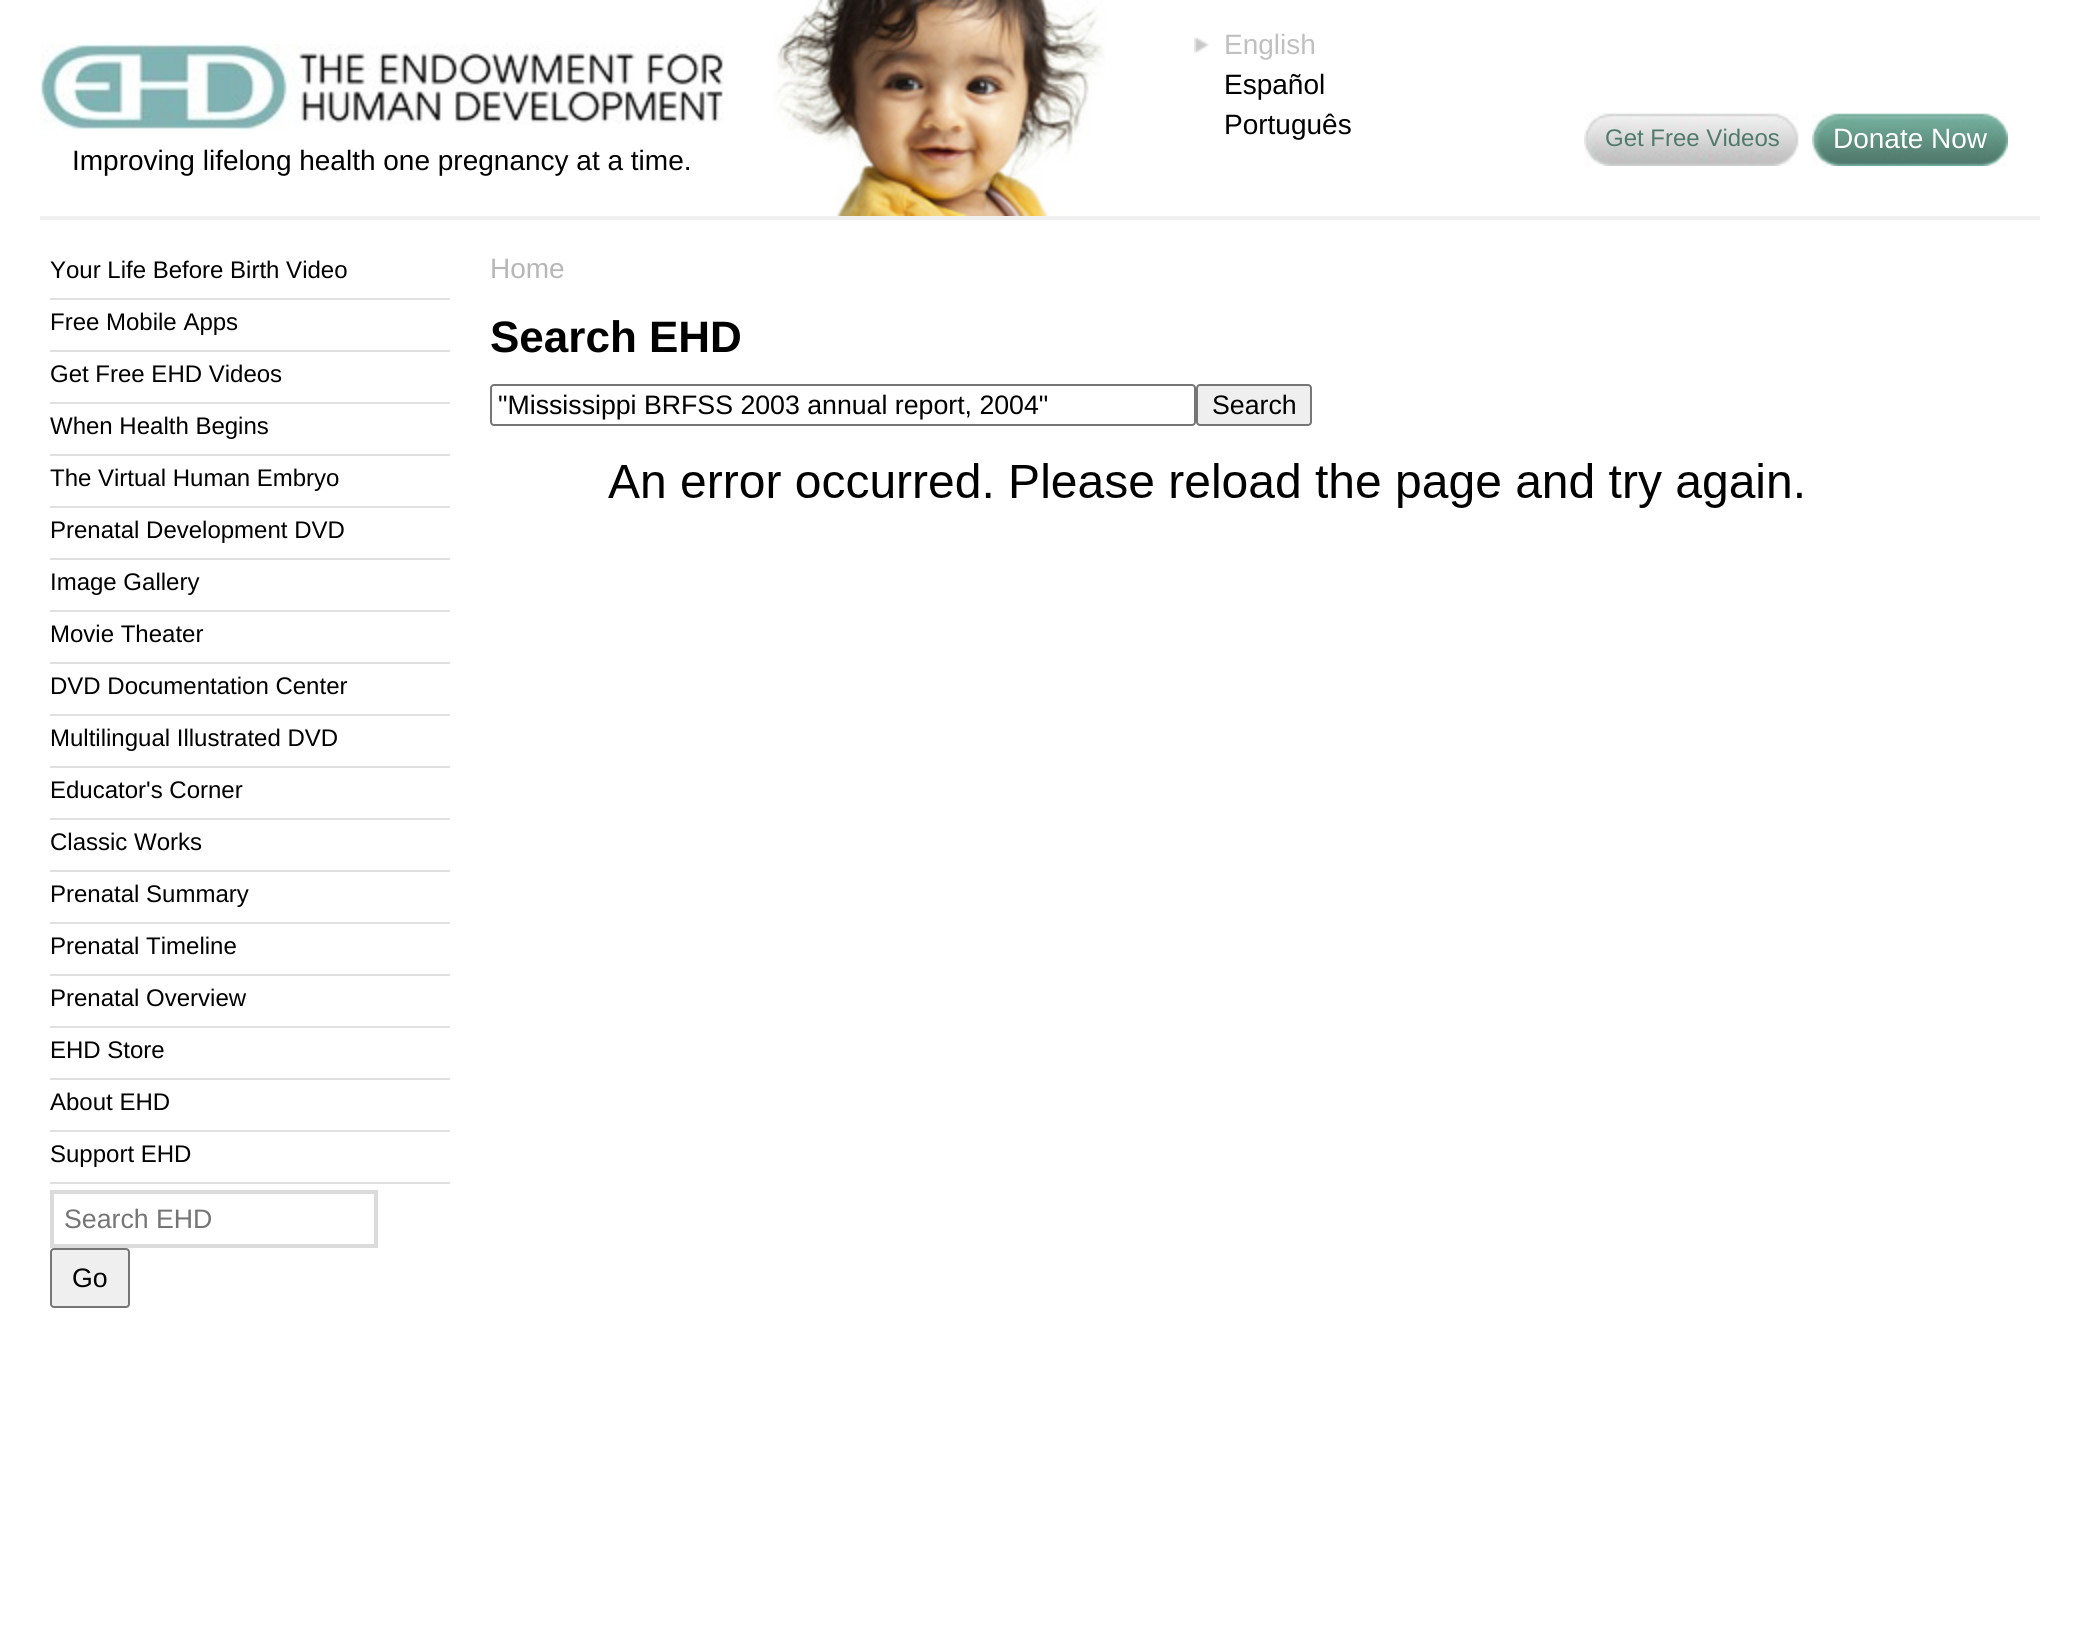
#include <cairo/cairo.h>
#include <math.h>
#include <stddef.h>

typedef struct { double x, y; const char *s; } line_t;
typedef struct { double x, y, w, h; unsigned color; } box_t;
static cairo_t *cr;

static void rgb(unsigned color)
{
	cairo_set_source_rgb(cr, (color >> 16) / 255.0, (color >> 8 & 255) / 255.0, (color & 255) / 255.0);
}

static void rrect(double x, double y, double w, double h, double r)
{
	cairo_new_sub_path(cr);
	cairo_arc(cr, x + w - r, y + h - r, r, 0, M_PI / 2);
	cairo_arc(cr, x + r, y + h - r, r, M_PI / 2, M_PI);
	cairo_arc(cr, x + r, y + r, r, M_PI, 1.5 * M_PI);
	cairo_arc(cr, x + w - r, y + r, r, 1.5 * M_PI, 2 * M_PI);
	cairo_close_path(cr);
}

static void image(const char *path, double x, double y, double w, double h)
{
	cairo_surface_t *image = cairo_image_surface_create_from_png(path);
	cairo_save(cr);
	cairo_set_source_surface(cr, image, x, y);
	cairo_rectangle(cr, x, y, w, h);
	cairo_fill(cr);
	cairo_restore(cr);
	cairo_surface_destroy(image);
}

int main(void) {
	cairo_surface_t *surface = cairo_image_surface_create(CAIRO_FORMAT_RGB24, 2073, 1637);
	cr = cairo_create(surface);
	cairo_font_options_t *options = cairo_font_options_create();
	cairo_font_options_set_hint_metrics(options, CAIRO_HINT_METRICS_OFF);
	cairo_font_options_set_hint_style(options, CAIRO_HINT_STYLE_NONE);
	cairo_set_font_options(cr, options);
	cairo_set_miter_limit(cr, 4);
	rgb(0xffffff);
	cairo_paint(cr);
	image("img/1.png", 774, 0, 331, 216);
	image("img/2.png", 1194, 37, 15, 16);
	image("img/3.png", 1584, 112, 215, 54);
	image("img/4.png", 1812, 113, 196, 53);
	image("img/5.png", 40, 44, 684, 86);
	{
		static const box_t items[] = {
			{40, 216, 2000, 4, 0xf0f0f0},
			{50, 298, 400, 2, 0xe0e0e0},
			{50, 350, 400, 2, 0xe0e0e0},
			{50, 402, 400, 2, 0xe0e0e0},
			{50, 454, 400, 2, 0xe0e0e0},
			{50, 506, 400, 2, 0xe0e0e0},
			{50, 558, 400, 2, 0xe0e0e0},
			{50, 610, 400, 2, 0xe0e0e0},
			{50, 662, 400, 2, 0xe0e0e0},
			{50, 714, 400, 2, 0xe0e0e0},
			{50, 766, 400, 2, 0xe0e0e0},
			{50, 818, 400, 2, 0xe0e0e0},
			{50, 870, 400, 2, 0xe0e0e0},
			{50, 922, 400, 2, 0xe0e0e0},
			{50, 974, 400, 2, 0xe0e0e0},
			{50, 1026, 400, 2, 0xe0e0e0},
			{50, 1078, 400, 2, 0xe0e0e0},
			{50, 1130, 400, 2, 0xe0e0e0},
			{50, 1182, 400, 2, 0xe0e0e0},
		};
		for (size_t i = 0; i < sizeof items / sizeof *items; i++) {
			rgb(items[i].color);
			cairo_rectangle(cr, items[i].x, items[i].y, items[i].w, items[i].h);
			cairo_fill(cr);
		}
	}
	cairo_rectangle(cr, 52, 1192, 324, 54);
	rgb(0xdbdbdb);
	cairo_set_line_width(cr, 4);
	cairo_stroke(cr);
	rgb(0xefefef);
	rrect(51, 1249, 78, 58, 3);
	cairo_fill_preserve(cr);
	rgb(0x767676);
	cairo_set_line_width(cr, 2);
	cairo_stroke(cr);
	rrect(491, 385, 704, 40, 3);
	cairo_stroke(cr);
	rgb(0xefefef);
	rrect(1197, 385, 114, 40, 3);
	cairo_fill_preserve(cr);
	rgb(0x767676);
	cairo_stroke(cr);
	image("img/6.png", 608, 463, 1194, 45);
	cairo_select_font_face(cr, "Liberation Sans", CAIRO_FONT_SLANT_NORMAL, CAIRO_FONT_WEIGHT_NORMAL);
	cairo_set_font_size(cr, 28);
	rgb(0xc0c0c0);
	cairo_move_to(cr, 1224, 54);
	cairo_show_text(cr, "English");
	rgb(0x000000);
	cairo_move_to(cr, 1224, 94);
	cairo_show_text(cr, "Español");
	cairo_move_to(cr, 1224, 134);
	cairo_show_text(cr, "Português");
	cairo_set_font_size(cr, 24);
	rgb(0x507a6c);
	cairo_move_to(cr, 1605, 146);
	cairo_show_text(cr, "Get Free Videos");
	cairo_set_font_size(cr, 28);
	rgb(0xffffff);
	cairo_move_to(cr, 1833, 148);
	cairo_show_text(cr, "Donate Now");
	rgb(0x000000);
	cairo_move_to(cr, 72, 170);
	cairo_show_text(cr, "Improving lifelong health one pregnancy at a time.");
	cairo_set_font_size(cr, 24);
	{
		static const line_t items[] = {
			{50, 278, "Your Life Before Birth Video"},
			{50, 330, "Free Mobile Apps"},
			{50, 382, "Get Free EHD Videos"},
			{50, 434, "When Health Begins"},
			{50, 486, "The Virtual Human Embryo"},
			{50, 538, "Prenatal Development DVD"},
			{50, 590, "Image Gallery"},
			{50, 642, "Movie Theater"},
			{50, 694, "DVD Documentation Center"},
			{50, 746, "Multilingual Illustrated DVD"},
			{50, 798, "Educator's Corner"},
			{50, 850, "Classic Works"},
			{50, 902, "Prenatal Summary"},
			{50, 954, "Prenatal Timeline"},
			{50, 1006, "Prenatal Overview"},
			{50, 1058, "EHD Store"},
			{50, 1110, "About EHD"},
			{50, 1162, "Support EHD"},
		};
		for (size_t i = 0; i < sizeof items / sizeof *items; i++) {
			cairo_move_to(cr, items[i].x, items[i].y);
			cairo_show_text(cr, items[i].s);
		}
	}
	cairo_set_font_size(cr, 26.7);
	rgb(0x757575);
	cairo_move_to(cr, 64, 1228);
	cairo_show_text(cr, "Search EHD");
	rgb(0x000000);
	cairo_move_to(cr, 72, 1287);
	cairo_show_text(cr, "Go");
	cairo_set_font_size(cr, 28);
	rgb(0xb7b7b7);
	cairo_move_to(cr, 490, 278);
	cairo_show_text(cr, "Home");
	cairo_select_font_face(cr, "Liberation Sans", CAIRO_FONT_SLANT_NORMAL, CAIRO_FONT_WEIGHT_BOLD);
	cairo_set_font_size(cr, 44);
	rgb(0x000000);
	cairo_move_to(cr, 490, 352);
	cairo_show_text(cr, "Search EHD");
	cairo_select_font_face(cr, "Liberation Sans", CAIRO_FONT_SLANT_NORMAL, CAIRO_FONT_WEIGHT_NORMAL);
	cairo_set_font_size(cr, 26.7);
	cairo_move_to(cr, 498, 414);
	cairo_show_text(cr, "\"Mississippi BRFSS 2003 annual report, 2004\"");
	cairo_move_to(cr, 1212, 414);
	cairo_show_text(cr, "Search");
	cairo_surface_write_to_png(surface, "page.png");
	cairo_font_options_destroy(options);
	cairo_destroy(cr);
	cairo_surface_destroy(surface);
	return 0;
}
